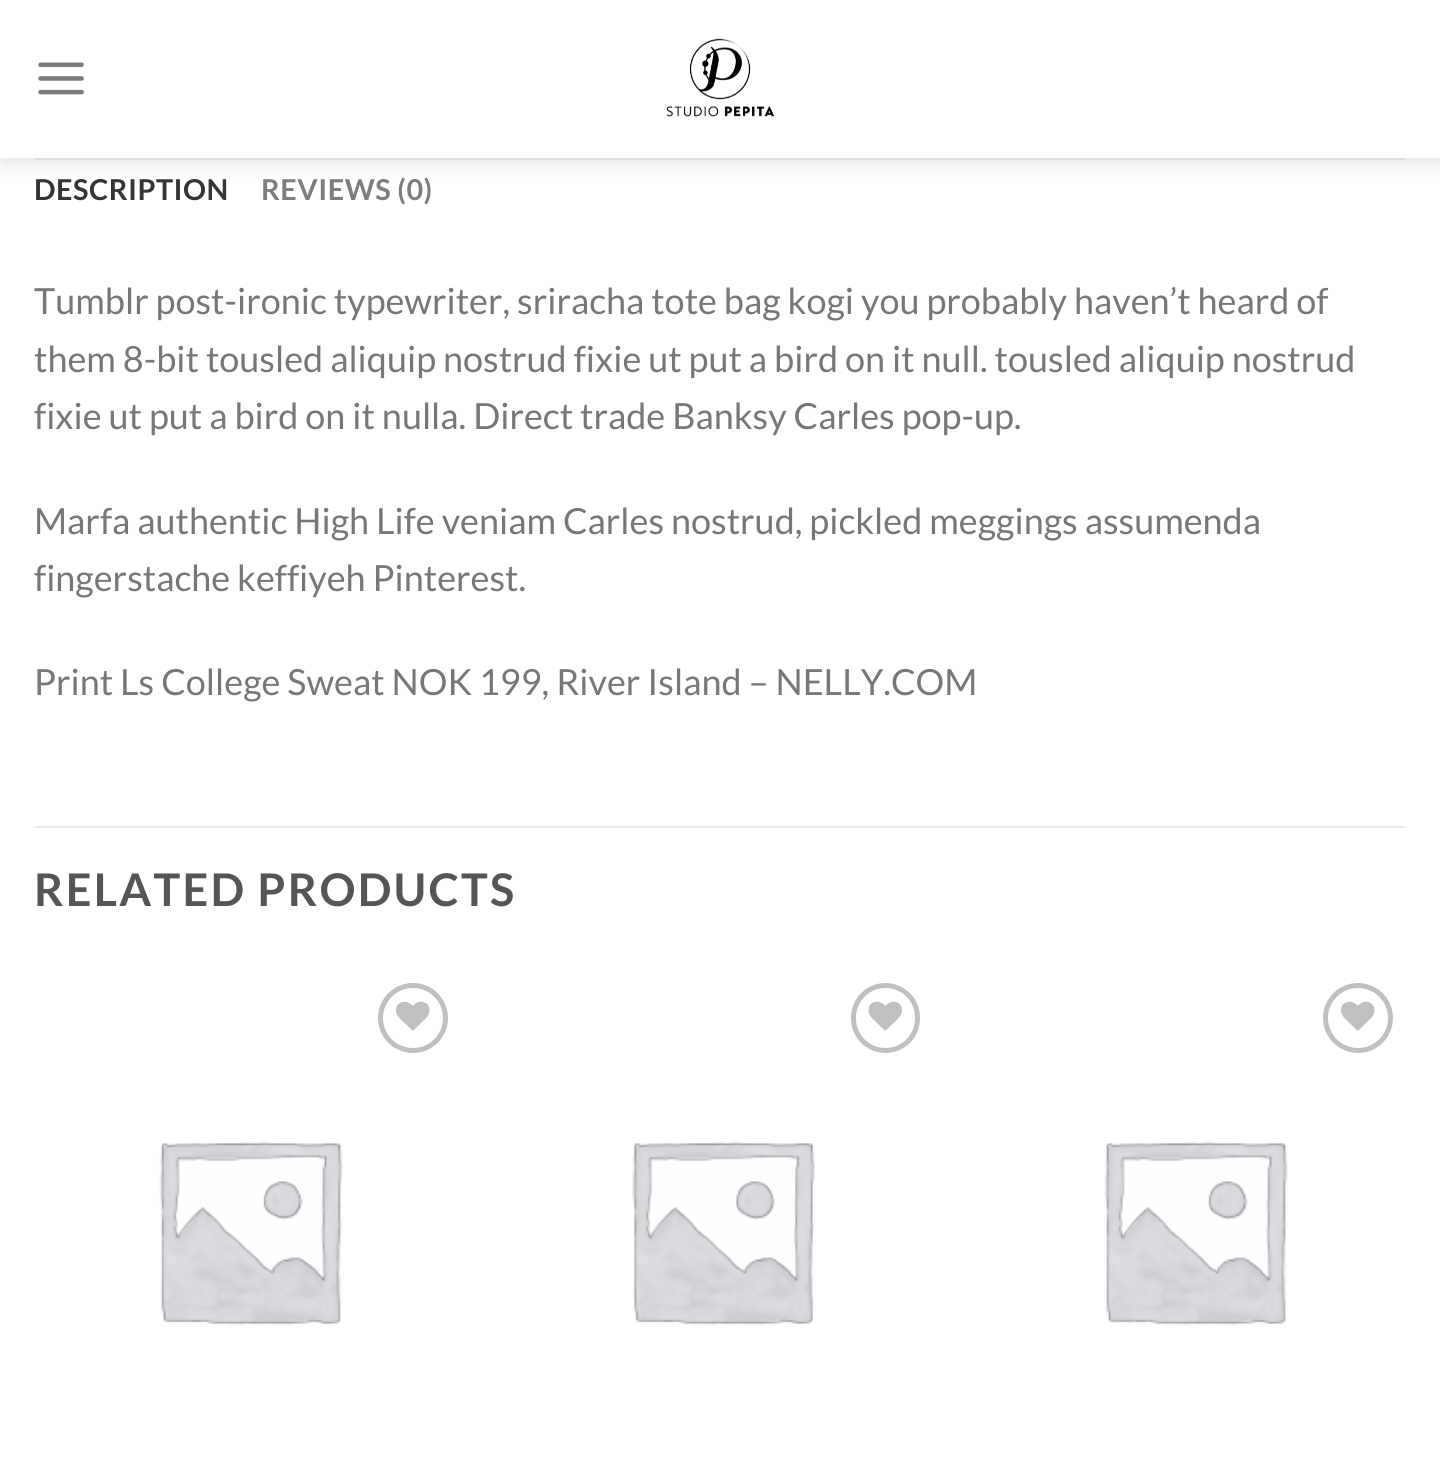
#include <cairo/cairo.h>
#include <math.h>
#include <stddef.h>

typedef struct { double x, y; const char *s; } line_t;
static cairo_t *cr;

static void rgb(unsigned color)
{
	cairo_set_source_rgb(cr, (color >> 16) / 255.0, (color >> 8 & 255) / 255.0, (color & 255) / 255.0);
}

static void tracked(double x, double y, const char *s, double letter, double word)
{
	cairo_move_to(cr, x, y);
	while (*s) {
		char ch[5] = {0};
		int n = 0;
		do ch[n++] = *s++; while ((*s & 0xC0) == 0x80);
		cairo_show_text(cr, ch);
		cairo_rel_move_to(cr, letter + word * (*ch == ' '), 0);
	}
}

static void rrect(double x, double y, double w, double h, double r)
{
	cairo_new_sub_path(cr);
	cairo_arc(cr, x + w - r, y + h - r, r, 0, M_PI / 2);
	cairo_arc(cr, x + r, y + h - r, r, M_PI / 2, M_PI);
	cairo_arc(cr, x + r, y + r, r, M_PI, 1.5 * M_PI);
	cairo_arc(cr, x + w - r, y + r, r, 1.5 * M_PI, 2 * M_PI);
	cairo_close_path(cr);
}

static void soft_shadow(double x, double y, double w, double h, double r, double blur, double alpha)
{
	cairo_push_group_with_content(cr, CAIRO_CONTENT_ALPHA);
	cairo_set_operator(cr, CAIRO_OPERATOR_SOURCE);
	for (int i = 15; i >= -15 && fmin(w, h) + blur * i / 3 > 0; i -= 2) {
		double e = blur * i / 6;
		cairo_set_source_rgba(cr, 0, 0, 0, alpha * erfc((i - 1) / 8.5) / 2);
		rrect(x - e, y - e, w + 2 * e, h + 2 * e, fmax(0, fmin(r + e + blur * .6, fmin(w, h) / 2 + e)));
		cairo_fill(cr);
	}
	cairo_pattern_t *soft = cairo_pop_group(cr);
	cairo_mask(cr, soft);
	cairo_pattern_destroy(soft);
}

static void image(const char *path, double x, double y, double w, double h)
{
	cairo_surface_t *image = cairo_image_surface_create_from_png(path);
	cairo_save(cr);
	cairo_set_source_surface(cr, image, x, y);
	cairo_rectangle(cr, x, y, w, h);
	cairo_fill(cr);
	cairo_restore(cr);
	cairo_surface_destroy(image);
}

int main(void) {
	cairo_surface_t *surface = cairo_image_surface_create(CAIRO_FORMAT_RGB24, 1440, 1468);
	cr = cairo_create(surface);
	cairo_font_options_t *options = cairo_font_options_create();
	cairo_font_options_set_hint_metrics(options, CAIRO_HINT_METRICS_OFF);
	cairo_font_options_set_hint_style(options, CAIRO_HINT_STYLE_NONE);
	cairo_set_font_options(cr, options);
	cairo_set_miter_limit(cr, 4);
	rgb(0xffffff);
	cairo_paint(cr);
	rgb(0x000000);
	soft_shadow(2, 2, 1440, 158, 0, 11, 0.15);
	rgb(0xffffff);
	cairo_rectangle(cr, 0, 0, 1440, 158);
	cairo_fill(cr);
	image("img/1.png", 38, 62, 46, 33);
	image("img/2.png", 666, 38, 109, 79);
	rgb(0xdfdfdf);
	cairo_rectangle(cr, 34, 158, 1372, 2);
	cairo_fill(cr);
	rgb(0xececec);
	cairo_rectangle(cr, 34, 826, 1372, 2);
	cairo_fill(cr);
	cairo_arc(cr, 413, 1018, 32.5, 0, 2 * M_PI);
	rgb(0xc0c0c0);
	cairo_set_line_width(cr, 5);
	cairo_stroke(cr);
	image("img/3.png", 396, 1001, 34, 30);
	image("img/4.png", 159, 1141, 184, 185);
	rrect(853.5, 985.5, 64, 65, 32);
	cairo_stroke(cr);
	image("img/5.png", 868, 1001, 34, 30);
	image("img/6.png", 632, 1141, 183, 185);
	cairo_arc(cr, 1358, 1018, 32.5, 0, 2 * M_PI);
	cairo_stroke(cr);
	image("img/3.png", 1341, 1001, 34, 30);
	image("img/4.png", 1104, 1141, 184, 185);
	cairo_select_font_face(cr, "Lato", CAIRO_FONT_SLANT_NORMAL, CAIRO_FONT_WEIGHT_BOLD);
	cairo_set_font_size(cr, 28.75);
	rgb(0x353535);
	tracked(34, 200, "DESCRIPTION", 0.5, 0);
	rgb(0x7d7d7d);
	tracked(261, 200, "REVIEWS (0)", 0.5, 0);
	cairo_select_font_face(cr, "Lato", CAIRO_FONT_SLANT_NORMAL, CAIRO_FONT_WEIGHT_NORMAL);
	cairo_set_font_size(cr, 36);
	rgb(0x777777);
	{
		static const line_t items[] = {
			{34, 314, "Tumblr post-ironic typewriter, sriracha tote bag kogi you probably haven’t heard of"},
			{34, 372, "them 8-bit tousled aliquip nostrud fixie ut put a bird on it null. tousled aliquip nostrud"},
			{34, 429, "fixie ut put a bird on it nulla. Direct trade Banksy Carles pop-up."},
			{34, 534, "Marfa authentic High Life veniam Carles nostrud, pickled meggings assumenda"},
			{34, 591, "fingerstache keffiyeh Pinterest."},
			{34, 695, "Print Ls College Sweat NOK 199, River Island – NELLY.COM"},
		};
		for (size_t i = 0; i < sizeof items / sizeof *items; i++) {
			cairo_move_to(cr, items[i].x, items[i].y);
			cairo_show_text(cr, items[i].s);
		}
	}
	cairo_select_font_face(cr, "Lato", CAIRO_FONT_SLANT_NORMAL, CAIRO_FONT_WEIGHT_BOLD);
	cairo_set_font_size(cr, 45);
	rgb(0x555555);
	tracked(34, 906, "RELATED PRODUCTS", 2.25, 0);
	cairo_surface_write_to_png(surface, "page.png");
	cairo_font_options_destroy(options);
	cairo_destroy(cr);
	cairo_surface_destroy(surface);
	return 0;
}
